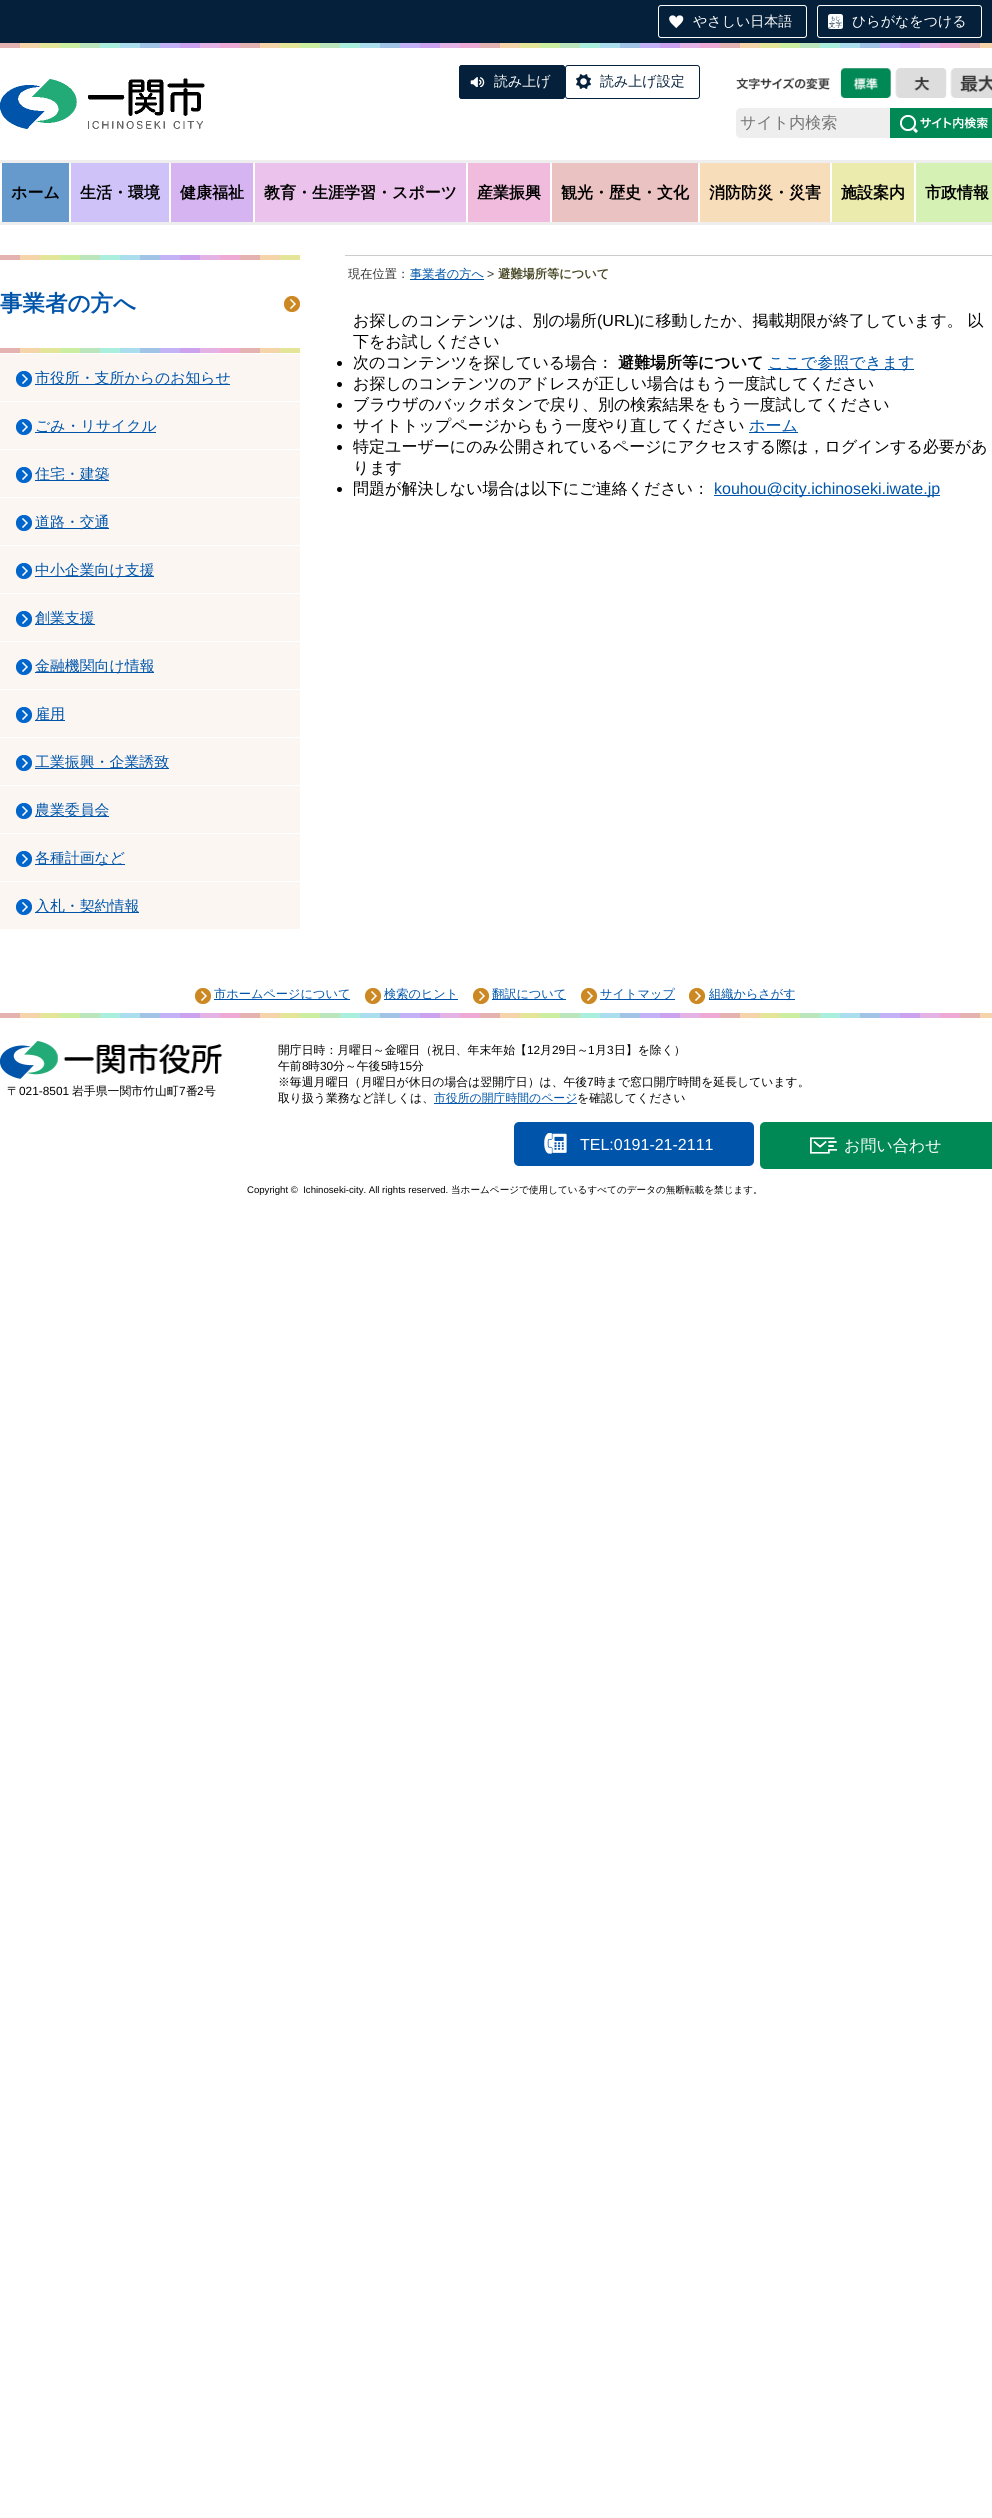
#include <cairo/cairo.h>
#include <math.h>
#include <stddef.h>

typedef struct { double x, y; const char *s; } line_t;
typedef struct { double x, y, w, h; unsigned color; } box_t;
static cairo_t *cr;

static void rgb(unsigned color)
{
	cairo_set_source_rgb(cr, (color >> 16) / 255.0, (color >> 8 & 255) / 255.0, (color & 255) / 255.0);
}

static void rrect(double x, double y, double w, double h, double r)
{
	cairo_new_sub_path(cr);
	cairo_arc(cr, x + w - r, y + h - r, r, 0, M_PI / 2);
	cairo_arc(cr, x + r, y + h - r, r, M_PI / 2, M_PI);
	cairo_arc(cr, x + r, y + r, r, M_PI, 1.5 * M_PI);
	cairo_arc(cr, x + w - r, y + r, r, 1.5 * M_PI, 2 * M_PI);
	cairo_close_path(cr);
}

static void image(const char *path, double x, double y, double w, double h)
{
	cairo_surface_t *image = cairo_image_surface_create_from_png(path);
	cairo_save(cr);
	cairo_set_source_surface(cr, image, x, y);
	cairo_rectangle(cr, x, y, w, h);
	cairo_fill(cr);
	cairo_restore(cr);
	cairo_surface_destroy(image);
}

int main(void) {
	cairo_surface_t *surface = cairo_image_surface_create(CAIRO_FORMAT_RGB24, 992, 2518);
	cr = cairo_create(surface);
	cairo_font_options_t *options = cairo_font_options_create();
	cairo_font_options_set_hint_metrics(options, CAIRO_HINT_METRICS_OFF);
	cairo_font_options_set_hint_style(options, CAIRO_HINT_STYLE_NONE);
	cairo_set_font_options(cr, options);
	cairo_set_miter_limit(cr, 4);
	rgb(0xffffff);
	cairo_paint(cr);
	rgb(0x05203a);
	cairo_rectangle(cr, 0, 0, 992, 43);
	cairo_fill(cr);
	image("img/1.png", 669, 15, 15, 13);
	rrect(658.5, 5.5, 148, 32, 2.5);
	rgb(0xffffff);
	cairo_set_line_width(cr, 1);
	cairo_stroke(cr);
	image("img/2.png", 828, 14, 15, 15);
	rrect(817.5, 5.5, 164, 32, 2.5);
	cairo_stroke(cr);
	image("img/3.png", 0, 43, 992, 5);
	image("img/4.png", 0, 78, 205, 51);
	rgb(0x05203a);
	rrect(459, 65, 106, 34, 3);
	cairo_fill(cr);
	image("img/5.png", 470, 77, 15, 10);
	rrect(459.5, 65.5, 105, 33, 2.5);
	cairo_stroke(cr);
	image("img/6.png", 576, 74, 15, 15);
	rrect(565.5, 65.5, 134, 33, 2.5);
	cairo_stroke(cr);
	image("img/7.png", 736, 68, 256, 30);
	image("img/8.png", 841, 68, 50, 30);
	image("img/9.png", 913, 68, 33, 30);
	image("img/10.png", 954, 75, 38, 23);
	rgb(0xeeeeee);
	cairo_new_path(cr);
	cairo_move_to(cr, 741, 108);
	cairo_line_to(cr, 891, 108);
	cairo_line_to(cr, 891, 138);
	cairo_line_to(cr, 741, 138);
	cairo_curve_to(cr, 738, 138, 736, 136, 736, 133);
	cairo_line_to(cr, 736, 113);
	cairo_curve_to(cr, 736, 110, 738, 108, 741, 108);
	cairo_close_path(cr);
	cairo_fill(cr);
	image("img/11.png", 890, 108, 102, 30);
	{
		static const box_t items[] = {
			{0, 160, 992, 3, 0xeeeeee},
			{0, 222, 992, 3, 0xeeeeee},
			{2, 163, 67, 59, 0x6699cc},
			{71, 163, 98, 59, 0xcfc2f8},
			{171, 163, 82, 59, 0xd6b4f1},
			{255, 163, 211, 59, 0xebc2eb},
			{468, 163, 82, 59, 0xf1bbdd},
			{552, 163, 146, 59, 0xebc2c2},
			{700, 163, 130, 59, 0xf8ddbb},
			{832, 163, 82, 59, 0xebebad},
			{916, 163, 76, 59, 0xd6f1b4},
		};
		for (size_t i = 0; i < sizeof items / sizeof *items; i++) {
			rgb(items[i].color);
			cairo_rectangle(cr, items[i].x, items[i].y, items[i].w, items[i].h);
			cairo_fill(cr);
		}
	}
	image("img/12.png", 0, 255, 300, 98);
	image("img/13.png", 284, 296, 16, 16);
	rgb(0xfbf6f2);
	cairo_rectangle(cr, 0, 354, 300, 575);
	cairo_fill(cr);
	image("img/14.png", 16, 371, 16, 16);
	rgb(0x0055aa);
	cairo_rectangle(cr, 35, 384, 195, 1);
	cairo_fill(cr);
	image("img/14.png", 16, 419, 16, 16);
	rgb(0xffffff);
	cairo_rectangle(cr, 0, 401, 300, 1);
	cairo_fill(cr);
	rgb(0x0055aa);
	cairo_rectangle(cr, 35, 432, 121, 1);
	cairo_fill(cr);
	image("img/14.png", 16, 467, 16, 16);
	rgb(0xffffff);
	cairo_rectangle(cr, 0, 449, 300, 1);
	cairo_fill(cr);
	rgb(0x0055aa);
	cairo_rectangle(cr, 35, 480, 74, 1);
	cairo_fill(cr);
	image("img/14.png", 16, 515, 16, 16);
	rgb(0xffffff);
	cairo_rectangle(cr, 0, 497, 300, 1);
	cairo_fill(cr);
	rgb(0x0055aa);
	cairo_rectangle(cr, 35, 528, 74, 1);
	cairo_fill(cr);
	image("img/14.png", 16, 563, 16, 16);
	rgb(0xffffff);
	cairo_rectangle(cr, 0, 545, 300, 1);
	cairo_fill(cr);
	rgb(0x0055aa);
	cairo_rectangle(cr, 35, 576, 119, 1);
	cairo_fill(cr);
	image("img/14.png", 16, 611, 16, 16);
	rgb(0xffffff);
	cairo_rectangle(cr, 0, 593, 300, 1);
	cairo_fill(cr);
	rgb(0x0055aa);
	cairo_rectangle(cr, 35, 624, 60, 1);
	cairo_fill(cr);
	image("img/14.png", 16, 659, 16, 16);
	rgb(0xffffff);
	cairo_rectangle(cr, 0, 641, 300, 1);
	cairo_fill(cr);
	rgb(0x0055aa);
	cairo_rectangle(cr, 35, 672, 119, 1);
	cairo_fill(cr);
	image("img/14.png", 16, 707, 16, 16);
	rgb(0xffffff);
	cairo_rectangle(cr, 0, 689, 300, 1);
	cairo_fill(cr);
	rgb(0x0055aa);
	cairo_rectangle(cr, 35, 720, 30, 1);
	cairo_fill(cr);
	image("img/14.png", 16, 755, 16, 16);
	rgb(0xffffff);
	cairo_rectangle(cr, 0, 737, 300, 1);
	cairo_fill(cr);
	rgb(0x0055aa);
	cairo_rectangle(cr, 35, 768, 134, 1);
	cairo_fill(cr);
	image("img/14.png", 16, 803, 16, 16);
	rgb(0xffffff);
	cairo_rectangle(cr, 0, 785, 300, 1);
	cairo_fill(cr);
	rgb(0x0055aa);
	cairo_rectangle(cr, 35, 816, 74, 1);
	cairo_fill(cr);
	image("img/14.png", 16, 851, 16, 16);
	rgb(0xffffff);
	cairo_rectangle(cr, 0, 833, 300, 1);
	cairo_fill(cr);
	rgb(0x0055aa);
	cairo_rectangle(cr, 35, 864, 90, 1);
	cairo_fill(cr);
	image("img/14.png", 16, 899, 16, 16);
	{
		static const box_t items[] = {
			{0, 881, 300, 1, 0xffffff},
			{35, 912, 104, 1, 0x0055aa},
			{345, 255, 647, 1, 0xcccccc},
			{410, 279, 74, 1, 0x0055aa},
		};
		for (size_t i = 0; i < sizeof items / sizeof *items; i++) {
			rgb(items[i].color);
			cairo_rectangle(cr, items[i].x, items[i].y, items[i].w, items[i].h);
			cairo_fill(cr);
		}
	}
	rgb(0x000000);
	cairo_arc(cr, 339.5, 363.5, 2.5, 0, 2 * M_PI);
	cairo_fill(cr);
	rgb(0x0055aa);
	cairo_rectangle(cr, 768, 369, 146, 1);
	cairo_fill(cr);
	rgb(0x000000);
	cairo_arc(cr, 339.5, 384.5, 2.5, 0, 2 * M_PI);
	cairo_fill(cr);
	cairo_arc(cr, 339.5, 405.5, 2.5, 0, 2 * M_PI);
	cairo_fill(cr);
	cairo_arc(cr, 339.5, 426.5, 2.5, 0, 2 * M_PI);
	cairo_fill(cr);
	rgb(0x0055aa);
	cairo_rectangle(cr, 749, 432, 49, 1);
	cairo_fill(cr);
	rgb(0x000000);
	cairo_arc(cr, 339.5, 447.5, 2.5, 0, 2 * M_PI);
	cairo_fill(cr);
	cairo_arc(cr, 339.5, 489.5, 2.5, 0, 2 * M_PI);
	cairo_fill(cr);
	rgb(0x0055aa);
	cairo_rectangle(cr, 714, 495, 226, 1);
	cairo_fill(cr);
	image("img/13.png", 195, 988, 16, 16);
	cairo_rectangle(cr, 214, 999, 136, 1);
	cairo_fill(cr);
	image("img/13.png", 365, 988, 16, 16);
	cairo_rectangle(cr, 384, 999, 74, 1);
	cairo_fill(cr);
	image("img/13.png", 473, 988, 16, 16);
	cairo_rectangle(cr, 492, 999, 74, 1);
	cairo_fill(cr);
	image("img/13.png", 581, 988, 16, 16);
	cairo_rectangle(cr, 600, 999, 75, 1);
	cairo_fill(cr);
	image("img/13.png", 689, 988, 16, 16);
	cairo_rectangle(cr, 709, 999, 86, 1);
	cairo_fill(cr);
	image("img/3.png", 0, 1013, 992, 5);
	image("img/15.png", 0, 1041, 223, 38);
	cairo_rectangle(cr, 434, 1103, 143, 1);
	cairo_fill(cr);
	rrect(514, 1122, 240, 44, 5);
	cairo_fill(cr);
	image("img/16.png", 544, 1133, 23, 21);
	rgb(0x008855);
	rrect(760, 1122, 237, 47, 5);
	cairo_fill(cr);
	image("img/17.png", 810, 1137, 27, 17);
	cairo_select_font_face(cr, "WenQuanYi Zen Hei Medium", CAIRO_FONT_SLANT_NORMAL, CAIRO_FONT_WEIGHT_NORMAL);
	cairo_set_font_size(cr, 14);
	rgb(0xffffff);
	{
		static const line_t items[] = {
			{693, 26, "やさしい日本語"},
			{852, 26, "ひらがなをつける"},
			{494, 86, "読み上げ"},
		};
		for (size_t i = 0; i < sizeof items / sizeof *items; i++) {
			cairo_move_to(cr, items[i].x, items[i].y);
			cairo_show_text(cr, items[i].s);
		}
	}
	rgb(0x05203a);
	cairo_move_to(cr, 600, 86);
	cairo_show_text(cr, "読み上げ設定");
	cairo_set_font_size(cr, 16);
	rgb(0x757575);
	cairo_move_to(cr, 740, 128);
	cairo_show_text(cr, "サイト内検索");
	cairo_select_font_face(cr, "WenQuanYi Zen Hei", CAIRO_FONT_SLANT_NORMAL, CAIRO_FONT_WEIGHT_BOLD);
	rgb(0x000000);
	{
		static const line_t items[] = {
			{11, 198, "ホーム"},
			{80, 198, "生活・環境"},
			{180, 198, "健康福祉"},
			{264, 198, "教育・生涯学習・スポーツ"},
			{477, 198, "産業振興"},
			{561, 198, "観光・歴史・文化"},
			{709, 198, "消防防災・災害"},
			{841, 198, "施設案内"},
			{925, 198, "市政情報"},
		};
		for (size_t i = 0; i < sizeof items / sizeof *items; i++) {
			cairo_move_to(cr, items[i].x, items[i].y);
			cairo_show_text(cr, items[i].s);
		}
	}
	cairo_set_font_size(cr, 22.5);
	rgb(0x0055aa);
	cairo_move_to(cr, 0, 311);
	cairo_show_text(cr, "事業者の方へ");
	cairo_select_font_face(cr, "WenQuanYi Zen Hei Medium", CAIRO_FONT_SLANT_NORMAL, CAIRO_FONT_WEIGHT_NORMAL);
	cairo_set_font_size(cr, 14.9);
	{
		static const line_t items[] = {
			{35, 383, "市役所・支所からのお知らせ"},
			{35, 431, "ごみ・リサイクル"},
			{35, 479, "住宅・建築"},
			{35, 527, "道路・交通"},
			{35, 575, "中小企業向け支援"},
			{35, 623, "創業支援"},
			{35, 671, "金融機関向け情報"},
			{35, 719, "雇用"},
			{35, 767, "工業振興・企業誘致"},
			{35, 815, "農業委員会"},
			{35, 863, "各種計画など"},
			{35, 911, "入札・契約情報"},
		};
		for (size_t i = 0; i < sizeof items / sizeof *items; i++) {
			cairo_move_to(cr, items[i].x, items[i].y);
			cairo_show_text(cr, items[i].s);
		}
	}
	cairo_set_font_size(cr, 12.25);
	rgb(0x333333);
	cairo_move_to(cr, 348, 278);
	cairo_show_text(cr, "現在位置：");
	rgb(0x0055aa);
	cairo_move_to(cr, 410, 278);
	cairo_show_text(cr, "事業者の方へ");
	cairo_select_font_face(cr, "Liberation Sans", CAIRO_FONT_SLANT_NORMAL, CAIRO_FONT_WEIGHT_NORMAL);
	rgb(0x333333);
	cairo_move_to(cr, 487, 278);
	cairo_show_text(cr, ">");
	cairo_select_font_face(cr, "WenQuanYi Zen Hei", CAIRO_FONT_SLANT_NORMAL, CAIRO_FONT_WEIGHT_BOLD);
	rgb(0x444422);
	cairo_move_to(cr, 498, 278);
	cairo_show_text(cr, "避難場所等について");
	cairo_select_font_face(cr, "WenQuanYi Zen Hei Medium", CAIRO_FONT_SLANT_NORMAL, CAIRO_FONT_WEIGHT_NORMAL);
	cairo_set_font_size(cr, 16);
	rgb(0x000000);
	cairo_move_to(cr, 353, 326);
	cairo_show_text(cr, "お探しのコンテンツは、別の場所");
	cairo_select_font_face(cr, "Liberation Sans", CAIRO_FONT_SLANT_NORMAL, CAIRO_FONT_WEIGHT_NORMAL);
	cairo_move_to(cr, 597, 326);
	cairo_show_text(cr, "(URL)");
	cairo_select_font_face(cr, "WenQuanYi Zen Hei Medium", CAIRO_FONT_SLANT_NORMAL, CAIRO_FONT_WEIGHT_NORMAL);
	{
		static const line_t items[] = {
			{639, 326, "に移動したか、掲載期限が終了しています。 以"},
			{353, 347, "下をお試しください"},
			{353, 368, "次のコンテンツを探している場合："},
		};
		for (size_t i = 0; i < sizeof items / sizeof *items; i++) {
			cairo_move_to(cr, items[i].x, items[i].y);
			cairo_show_text(cr, items[i].s);
		}
	}
	cairo_select_font_face(cr, "WenQuanYi Zen Hei", CAIRO_FONT_SLANT_NORMAL, CAIRO_FONT_WEIGHT_BOLD);
	cairo_move_to(cr, 618, 368);
	cairo_show_text(cr, "避難場所等について");
	cairo_select_font_face(cr, "WenQuanYi Zen Hei Medium", CAIRO_FONT_SLANT_NORMAL, CAIRO_FONT_WEIGHT_NORMAL);
	rgb(0x0055aa);
	cairo_move_to(cr, 768, 368);
	cairo_show_text(cr, "ここで参照できます");
	rgb(0x000000);
	{
		static const line_t items[] = {
			{353, 389, "お探しのコンテンツのアドレスが正しい場合はもう一度試してください"},
			{353, 410, "ブラウザのバックボタンで戻り、別の検索結果をもう一度試してください"},
			{353, 431, "サイトトップページからもう一度やり直してください"},
		};
		for (size_t i = 0; i < sizeof items / sizeof *items; i++) {
			cairo_move_to(cr, items[i].x, items[i].y);
			cairo_show_text(cr, items[i].s);
		}
	}
	rgb(0x0055aa);
	cairo_move_to(cr, 749, 431);
	cairo_show_text(cr, "ホーム");
	rgb(0x000000);
	{
		static const line_t items[] = {
			{353, 452, "特定ユーザーにのみ公開されているページにアクセスする際は，ログインする必要があ"},
			{353, 473, "ります"},
			{353, 494, "問題が解決しない場合は以下にご連絡ください："},
		};
		for (size_t i = 0; i < sizeof items / sizeof *items; i++) {
			cairo_move_to(cr, items[i].x, items[i].y);
			cairo_show_text(cr, items[i].s);
		}
	}
	cairo_select_font_face(cr, "Liberation Sans", CAIRO_FONT_SLANT_NORMAL, CAIRO_FONT_WEIGHT_NORMAL);
	rgb(0x0055aa);
	cairo_move_to(cr, 714, 494);
	cairo_show_text(cr, "kouhou@city.ichinoseki.iwate.jp");
	cairo_select_font_face(cr, "WenQuanYi Zen Hei Medium", CAIRO_FONT_SLANT_NORMAL, CAIRO_FONT_WEIGHT_NORMAL);
	cairo_set_font_size(cr, 12.2);
	{
		static const line_t items[] = {
			{214, 998, "市ホームページについて"},
			{384, 998, "検索のヒント"},
			{492, 998, "翻訳について"},
			{600, 998, "サイトマップ"},
			{709, 998, "組織からさがす"},
		};
		for (size_t i = 0; i < sizeof items / sizeof *items; i++) {
			cairo_move_to(cr, items[i].x, items[i].y);
			cairo_show_text(cr, items[i].s);
		}
	}
	cairo_set_font_size(cr, 11.85);
	rgb(0x000000);
	cairo_move_to(cr, 7, 1095);
	cairo_show_text(cr, "〒");
	cairo_select_font_face(cr, "Liberation Sans", CAIRO_FONT_SLANT_NORMAL, CAIRO_FONT_WEIGHT_NORMAL);
	cairo_move_to(cr, 19, 1095);
	cairo_show_text(cr, "021-8501");
	cairo_select_font_face(cr, "WenQuanYi Zen Hei Medium", CAIRO_FONT_SLANT_NORMAL, CAIRO_FONT_WEIGHT_NORMAL);
	cairo_move_to(cr, 72, 1095);
	cairo_show_text(cr, "岩手県一関市竹山町");
	cairo_select_font_face(cr, "Liberation Sans", CAIRO_FONT_SLANT_NORMAL, CAIRO_FONT_WEIGHT_NORMAL);
	cairo_move_to(cr, 179, 1095);
	cairo_show_text(cr, "7");
	cairo_select_font_face(cr, "WenQuanYi Zen Hei Medium", CAIRO_FONT_SLANT_NORMAL, CAIRO_FONT_WEIGHT_NORMAL);
	cairo_move_to(cr, 186, 1095);
	cairo_show_text(cr, "番");
	cairo_select_font_face(cr, "Liberation Sans", CAIRO_FONT_SLANT_NORMAL, CAIRO_FONT_WEIGHT_NORMAL);
	cairo_move_to(cr, 197, 1095);
	cairo_show_text(cr, "2");
	cairo_select_font_face(cr, "WenQuanYi Zen Hei Medium", CAIRO_FONT_SLANT_NORMAL, CAIRO_FONT_WEIGHT_NORMAL);
	cairo_move_to(cr, 204, 1095);
	cairo_show_text(cr, "号");
	cairo_move_to(cr, 278, 1054);
	cairo_show_text(cr, "開庁日時：月曜日～金曜日（祝日、年末年始【");
	cairo_select_font_face(cr, "Liberation Sans", CAIRO_FONT_SLANT_NORMAL, CAIRO_FONT_WEIGHT_NORMAL);
	cairo_move_to(cr, 527, 1054);
	cairo_show_text(cr, "12");
	cairo_select_font_face(cr, "WenQuanYi Zen Hei Medium", CAIRO_FONT_SLANT_NORMAL, CAIRO_FONT_WEIGHT_NORMAL);
	cairo_move_to(cr, 540, 1054);
	cairo_show_text(cr, "月");
	cairo_select_font_face(cr, "Liberation Sans", CAIRO_FONT_SLANT_NORMAL, CAIRO_FONT_WEIGHT_NORMAL);
	cairo_move_to(cr, 552, 1054);
	cairo_show_text(cr, "29");
	cairo_select_font_face(cr, "WenQuanYi Zen Hei Medium", CAIRO_FONT_SLANT_NORMAL, CAIRO_FONT_WEIGHT_NORMAL);
	cairo_move_to(cr, 565, 1054);
	cairo_show_text(cr, "日～");
	cairo_select_font_face(cr, "Liberation Sans", CAIRO_FONT_SLANT_NORMAL, CAIRO_FONT_WEIGHT_NORMAL);
	cairo_move_to(cr, 588, 1054);
	cairo_show_text(cr, "1");
	cairo_select_font_face(cr, "WenQuanYi Zen Hei Medium", CAIRO_FONT_SLANT_NORMAL, CAIRO_FONT_WEIGHT_NORMAL);
	cairo_move_to(cr, 595, 1054);
	cairo_show_text(cr, "月");
	cairo_select_font_face(cr, "Liberation Sans", CAIRO_FONT_SLANT_NORMAL, CAIRO_FONT_WEIGHT_NORMAL);
	cairo_move_to(cr, 607, 1054);
	cairo_show_text(cr, "3");
	cairo_select_font_face(cr, "WenQuanYi Zen Hei Medium", CAIRO_FONT_SLANT_NORMAL, CAIRO_FONT_WEIGHT_NORMAL);
	cairo_move_to(cr, 614, 1054);
	cairo_show_text(cr, "日】を除く）");
	cairo_move_to(cr, 278, 1070);
	cairo_show_text(cr, "午前");
	cairo_select_font_face(cr, "Liberation Sans", CAIRO_FONT_SLANT_NORMAL, CAIRO_FONT_WEIGHT_NORMAL);
	cairo_move_to(cr, 302, 1070);
	cairo_show_text(cr, "8");
	cairo_select_font_face(cr, "WenQuanYi Zen Hei Medium", CAIRO_FONT_SLANT_NORMAL, CAIRO_FONT_WEIGHT_NORMAL);
	cairo_move_to(cr, 308, 1070);
	cairo_show_text(cr, "時");
	cairo_select_font_face(cr, "Liberation Sans", CAIRO_FONT_SLANT_NORMAL, CAIRO_FONT_WEIGHT_NORMAL);
	cairo_move_to(cr, 320, 1070);
	cairo_show_text(cr, "30");
	cairo_select_font_face(cr, "WenQuanYi Zen Hei Medium", CAIRO_FONT_SLANT_NORMAL, CAIRO_FONT_WEIGHT_NORMAL);
	cairo_move_to(cr, 333, 1070);
	cairo_show_text(cr, "分～午後");
	cairo_select_font_face(cr, "Liberation Sans", CAIRO_FONT_SLANT_NORMAL, CAIRO_FONT_WEIGHT_NORMAL);
	cairo_move_to(cr, 381, 1070);
	cairo_show_text(cr, "5");
	cairo_select_font_face(cr, "WenQuanYi Zen Hei Medium", CAIRO_FONT_SLANT_NORMAL, CAIRO_FONT_WEIGHT_NORMAL);
	cairo_move_to(cr, 387, 1070);
	cairo_show_text(cr, "時");
	cairo_select_font_face(cr, "Liberation Sans", CAIRO_FONT_SLANT_NORMAL, CAIRO_FONT_WEIGHT_NORMAL);
	cairo_move_to(cr, 399, 1070);
	cairo_show_text(cr, "15");
	cairo_select_font_face(cr, "WenQuanYi Zen Hei Medium", CAIRO_FONT_SLANT_NORMAL, CAIRO_FONT_WEIGHT_NORMAL);
	cairo_move_to(cr, 412, 1070);
	cairo_show_text(cr, "分");
	cairo_move_to(cr, 278, 1086);
	cairo_show_text(cr, "※毎週月曜日（月曜日が休日の場合は翌開庁日）は、午後");
	cairo_select_font_face(cr, "Liberation Sans", CAIRO_FONT_SLANT_NORMAL, CAIRO_FONT_WEIGHT_NORMAL);
	cairo_move_to(cr, 587, 1086);
	cairo_show_text(cr, "7");
	cairo_select_font_face(cr, "WenQuanYi Zen Hei Medium", CAIRO_FONT_SLANT_NORMAL, CAIRO_FONT_WEIGHT_NORMAL);
	cairo_move_to(cr, 594, 1086);
	cairo_show_text(cr, "時まで窓口開庁時間を延長しています。");
	cairo_move_to(cr, 278, 1102);
	cairo_show_text(cr, "取り扱う業務など詳しくは、");
	rgb(0x0055aa);
	cairo_move_to(cr, 434, 1102);
	cairo_show_text(cr, "市役所の開庁時間のページ");
	rgb(0x000000);
	cairo_move_to(cr, 577, 1102);
	cairo_show_text(cr, "を確認してください");
	cairo_select_font_face(cr, "Liberation Sans", CAIRO_FONT_SLANT_NORMAL, CAIRO_FONT_WEIGHT_NORMAL);
	cairo_set_font_size(cr, 16);
	rgb(0xffffff);
	cairo_move_to(cr, 580, 1150);
	cairo_show_text(cr, "TEL:0191-21-2111");
	cairo_select_font_face(cr, "WenQuanYi Zen Hei Medium", CAIRO_FONT_SLANT_NORMAL, CAIRO_FONT_WEIGHT_NORMAL);
	cairo_move_to(cr, 844, 1151);
	cairo_show_text(cr, "お問い合わせ");
	cairo_select_font_face(cr, "Liberation Sans", CAIRO_FONT_SLANT_NORMAL, CAIRO_FONT_WEIGHT_NORMAL);
	cairo_set_font_size(cr, 9.6);
	rgb(0x000000);
	cairo_move_to(cr, 247, 1193);
	cairo_show_text(cr, "Copyright ©  Ichinoseki-city. All rights reserved.");
	cairo_select_font_face(cr, "WenQuanYi Zen Hei Medium", CAIRO_FONT_SLANT_NORMAL, CAIRO_FONT_WEIGHT_NORMAL);
	cairo_move_to(cr, 451, 1193);
	cairo_show_text(cr, "当ホームページで使用しているすべてのデータの無断転載を禁じます。");
	cairo_surface_write_to_png(surface, "page.png");
	cairo_font_options_destroy(options);
	cairo_destroy(cr);
	cairo_surface_destroy(surface);
	return 0;
}
